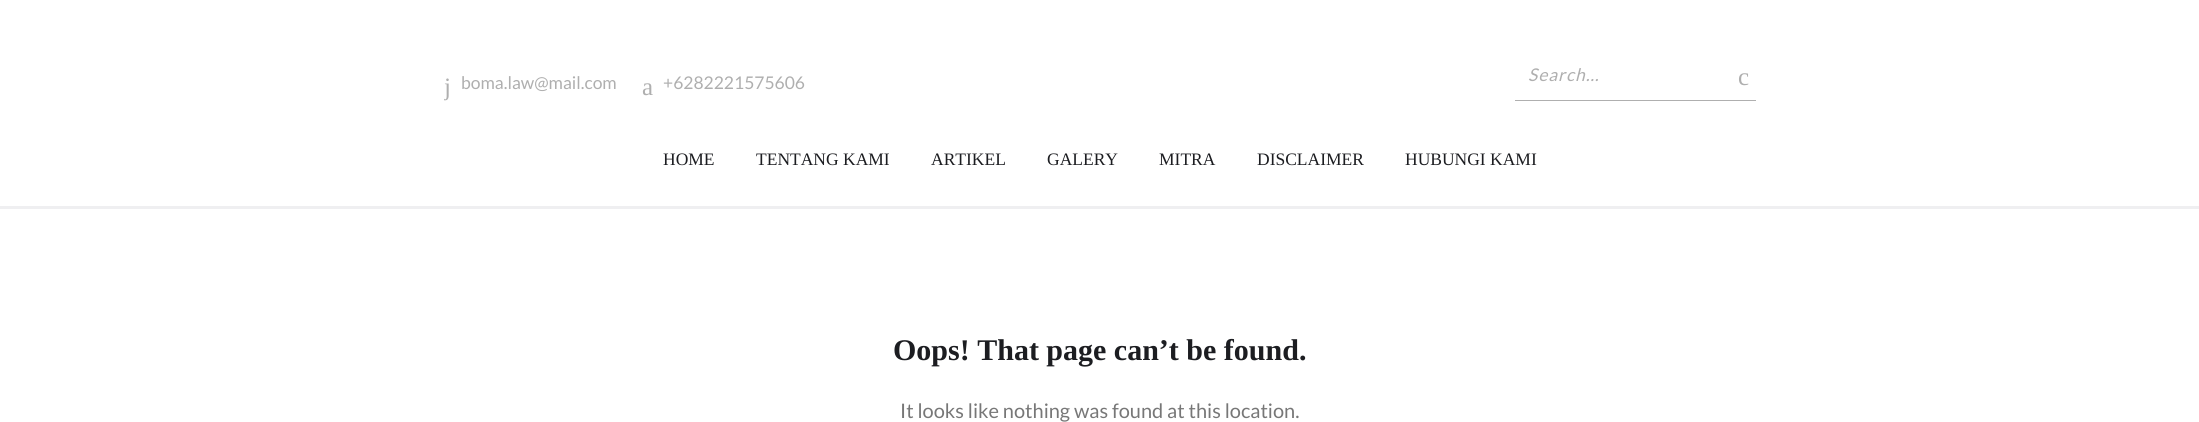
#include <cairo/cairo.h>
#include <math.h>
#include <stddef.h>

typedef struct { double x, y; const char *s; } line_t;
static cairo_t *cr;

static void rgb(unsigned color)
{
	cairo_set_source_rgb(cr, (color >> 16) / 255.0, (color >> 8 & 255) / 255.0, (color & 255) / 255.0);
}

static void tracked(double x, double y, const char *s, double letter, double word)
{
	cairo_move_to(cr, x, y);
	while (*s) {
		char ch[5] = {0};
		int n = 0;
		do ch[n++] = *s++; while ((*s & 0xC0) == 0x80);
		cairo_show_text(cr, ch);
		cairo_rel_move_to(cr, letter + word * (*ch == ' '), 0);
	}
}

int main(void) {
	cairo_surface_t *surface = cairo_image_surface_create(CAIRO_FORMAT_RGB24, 2199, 422);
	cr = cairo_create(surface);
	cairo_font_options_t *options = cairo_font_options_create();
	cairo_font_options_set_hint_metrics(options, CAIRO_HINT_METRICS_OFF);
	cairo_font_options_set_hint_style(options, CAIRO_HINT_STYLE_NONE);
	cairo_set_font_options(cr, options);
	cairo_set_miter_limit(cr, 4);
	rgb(0xffffff);
	cairo_paint(cr);
	rgb(0xefeff1);
	cairo_rectangle(cr, 0, 206, 2199, 3);
	cairo_fill(cr);
	rgb(0xafafaf);
	cairo_rectangle(cr, 1515, 100, 241, 1);
	cairo_fill(cr);
	cairo_save(cr);
	cairo_rectangle(cr, 444, 63, 412, 40);
	cairo_clip(cr);
	cairo_select_font_face(cr, "Liberation Serif", CAIRO_FONT_SLANT_NORMAL, CAIRO_FONT_WEIGHT_NORMAL);
	cairo_set_font_size(cr, 25);
	cairo_move_to(cr, 444, 95);
	cairo_show_text(cr, "j");
	cairo_restore(cr);
	cairo_select_font_face(cr, "Lato", CAIRO_FONT_SLANT_NORMAL, CAIRO_FONT_WEIGHT_NORMAL);
	cairo_set_font_size(cr, 17.5);
	cairo_move_to(cr, 461, 89);
	cairo_show_text(cr, "boma.law@mail.com");
	cairo_select_font_face(cr, "Liberation Serif", CAIRO_FONT_SLANT_NORMAL, CAIRO_FONT_WEIGHT_NORMAL);
	cairo_set_font_size(cr, 25);
	cairo_move_to(cr, 642, 95);
	cairo_show_text(cr, "a");
	cairo_select_font_face(cr, "Lato", CAIRO_FONT_SLANT_NORMAL, CAIRO_FONT_WEIGHT_NORMAL);
	cairo_set_font_size(cr, 17.5);
	cairo_move_to(cr, 663, 89);
	cairo_show_text(cr, "+6282221575606");
	cairo_select_font_face(cr, "Lato", CAIRO_FONT_SLANT_ITALIC, CAIRO_FONT_WEIGHT_NORMAL);
	tracked(1528, 81, "Search...", 0.9, 0);
	cairo_select_font_face(cr, "Liberation Serif", CAIRO_FONT_SLANT_NORMAL, CAIRO_FONT_WEIGHT_NORMAL);
	cairo_set_font_size(cr, 25);
	cairo_move_to(cr, 1738, 85);
	cairo_show_text(cr, "c");
	cairo_set_font_size(cr, 17.5);
	rgb(0x1c1d21);
	{
		static const line_t items[] = {
			{663, 165, "HOME"},
			{756, 165, "TENTANG KAMI"},
			{931, 165, "ARTIKEL"},
			{1047, 165, "GALERY"},
			{1159, 165, "MITRA"},
			{1257, 165, "DISCLAIMER"},
			{1405, 165, "HUBUNGI KAMI"},
		};
		for (size_t i = 0; i < sizeof items / sizeof *items; i++) {
			cairo_move_to(cr, items[i].x, items[i].y);
			cairo_show_text(cr, items[i].s);
		}
	}
	cairo_select_font_face(cr, "Liberation Serif", CAIRO_FONT_SLANT_NORMAL, CAIRO_FONT_WEIGHT_BOLD);
	cairo_set_font_size(cr, 30);
	cairo_move_to(cr, 893, 360);
	cairo_show_text(cr, "Oops! That page can’t be found.");
	cairo_select_font_face(cr, "Lato", CAIRO_FONT_SLANT_NORMAL, CAIRO_FONT_WEIGHT_NORMAL);
	cairo_set_font_size(cr, 20);
	rgb(0x777777);
	cairo_move_to(cr, 900, 418);
	cairo_show_text(cr, "It looks like nothing was found at this location.");
	cairo_surface_write_to_png(surface, "page.png");
	cairo_font_options_destroy(options);
	cairo_destroy(cr);
	cairo_surface_destroy(surface);
	return 0;
}
